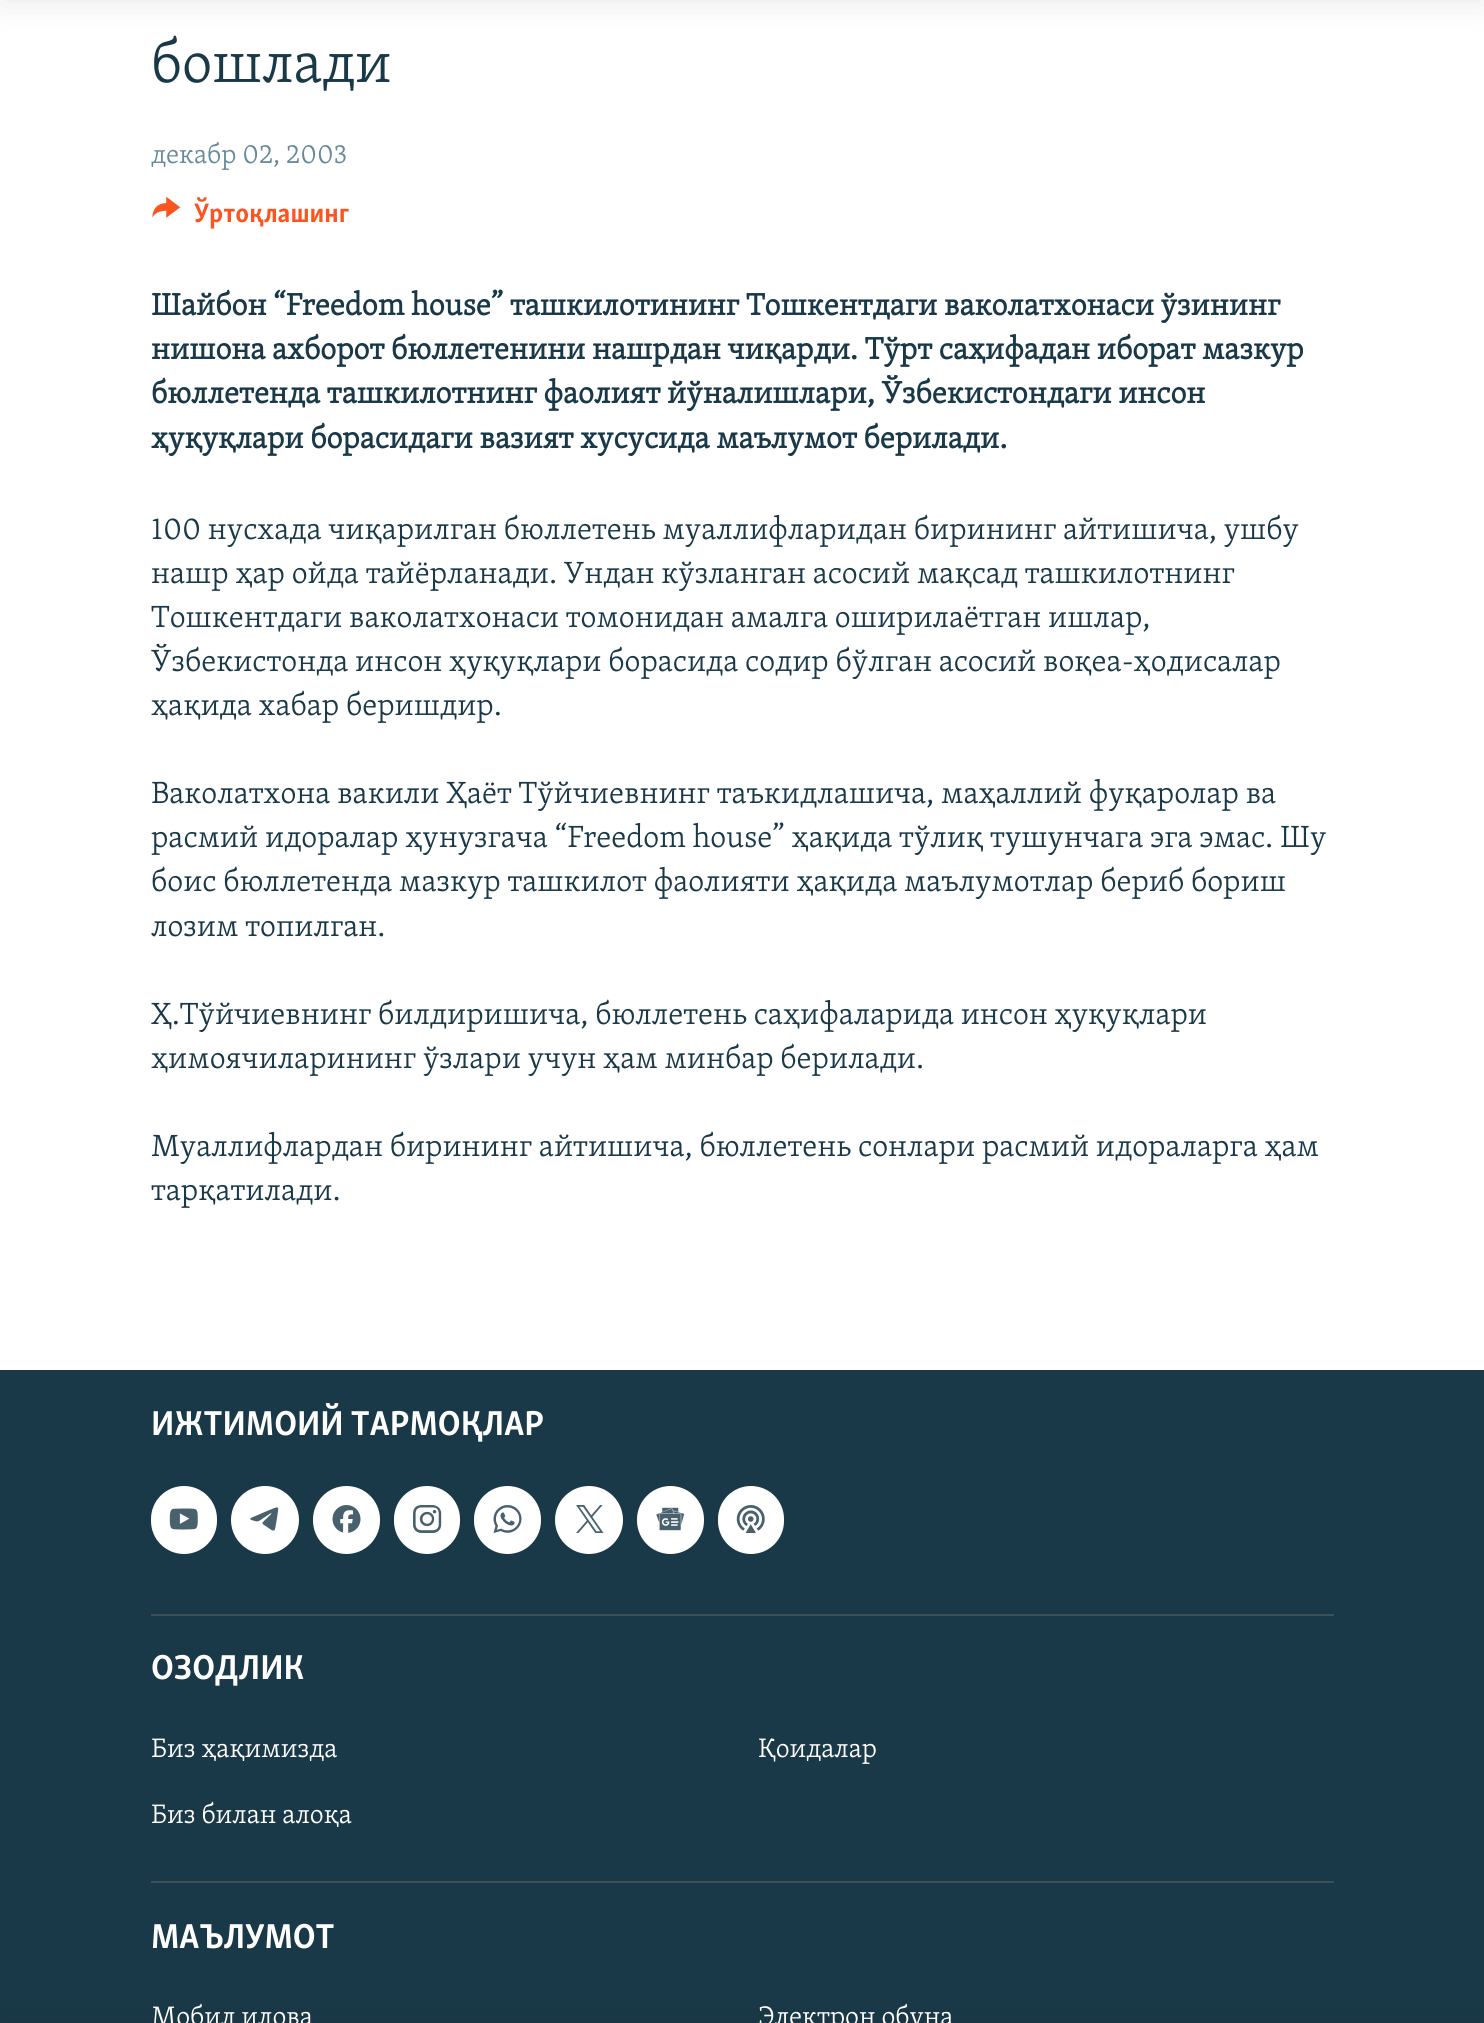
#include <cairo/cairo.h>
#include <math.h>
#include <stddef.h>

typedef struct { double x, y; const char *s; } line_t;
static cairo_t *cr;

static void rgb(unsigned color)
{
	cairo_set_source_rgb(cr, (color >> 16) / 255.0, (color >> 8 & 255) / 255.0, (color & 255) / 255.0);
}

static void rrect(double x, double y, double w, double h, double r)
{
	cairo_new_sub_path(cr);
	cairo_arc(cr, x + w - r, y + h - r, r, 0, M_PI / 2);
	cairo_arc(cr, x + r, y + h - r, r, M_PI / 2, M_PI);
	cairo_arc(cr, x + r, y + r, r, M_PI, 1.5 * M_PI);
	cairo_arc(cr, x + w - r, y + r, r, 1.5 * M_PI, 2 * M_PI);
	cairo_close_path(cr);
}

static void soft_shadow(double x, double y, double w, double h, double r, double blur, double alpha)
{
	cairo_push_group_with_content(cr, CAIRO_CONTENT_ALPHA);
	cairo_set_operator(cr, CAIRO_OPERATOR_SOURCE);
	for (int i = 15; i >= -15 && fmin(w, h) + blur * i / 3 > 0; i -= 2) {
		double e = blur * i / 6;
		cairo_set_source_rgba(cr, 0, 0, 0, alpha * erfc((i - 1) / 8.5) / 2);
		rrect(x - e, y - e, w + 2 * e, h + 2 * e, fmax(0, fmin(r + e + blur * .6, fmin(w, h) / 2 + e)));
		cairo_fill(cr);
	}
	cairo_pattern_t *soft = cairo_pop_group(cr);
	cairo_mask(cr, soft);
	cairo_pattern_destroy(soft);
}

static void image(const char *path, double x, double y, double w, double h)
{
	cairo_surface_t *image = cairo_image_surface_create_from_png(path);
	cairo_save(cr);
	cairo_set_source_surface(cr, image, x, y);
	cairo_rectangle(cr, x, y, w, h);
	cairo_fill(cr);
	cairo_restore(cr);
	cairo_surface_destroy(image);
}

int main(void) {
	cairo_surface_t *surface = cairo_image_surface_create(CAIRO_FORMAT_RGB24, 1484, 2023);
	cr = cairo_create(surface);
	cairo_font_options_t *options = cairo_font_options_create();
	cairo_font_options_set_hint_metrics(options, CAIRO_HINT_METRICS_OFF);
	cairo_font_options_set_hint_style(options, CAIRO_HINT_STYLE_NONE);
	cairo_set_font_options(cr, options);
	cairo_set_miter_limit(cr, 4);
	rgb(0xffffff);
	cairo_paint(cr);
	rgb(0x000000);
	soft_shadow(0, -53, 1484, 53, 0, 17.5, 0.1);
	rgb(0x1a3948);
	cairo_rectangle(cr, 0, 1370, 1484, 653);
	cairo_fill(cr);
	rgb(0x000000);
	soft_shadow(0, 2023, 1484, 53, 0, 17.5, 0.1);
	image("img/1.png", 152, 196, 29, 22);
	rgb(0xffffff);
	rrect(151, 1486, 66, 68, 33);
	cairo_fill(cr);
	image("img/2.png", 169, 1508, 29, 22);
	cairo_arc(cr, 265, 1520, 34, 0, 2 * M_PI);
	cairo_fill(cr);
	image("img/3.png", 250, 1507, 29, 24);
	rrect(313, 1486, 67, 68, 33.5);
	cairo_fill(cr);
	image("img/4.png", 332, 1505, 29, 28);
	rrect(394, 1486, 66, 68, 33);
	cairo_fill(cr);
	image("img/5.png", 413, 1505, 29, 28);
	rrect(474, 1486, 67, 68, 33.5);
	cairo_fill(cr);
	image("img/6.png", 493, 1505, 29, 28);
	cairo_arc(cr, 589, 1520, 34, 0, 2 * M_PI);
	cairo_fill(cr);
	image("img/7.png", 576, 1505, 28, 28);
	rrect(637, 1486, 67, 68, 33.5);
	cairo_fill(cr);
	image("img/8.png", 656, 1507, 29, 24);
	rrect(718, 1486, 66, 68, 33);
	cairo_fill(cr);
	image("img/9.png", 736, 1505, 29, 28);
	rgb(0x3e4f57);
	cairo_rectangle(cr, 151, 1614, 1183, 2);
	cairo_fill(cr);
	cairo_rectangle(cr, 151, 1881, 1183, 2);
	cairo_fill(cr);
	cairo_select_font_face(cr, "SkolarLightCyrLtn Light", CAIRO_FONT_SLANT_NORMAL, CAIRO_FONT_WEIGHT_NORMAL);
	cairo_set_font_size(cr, 60);
	rgb(0x1a3948);
	cairo_move_to(cr, 151, 82);
	cairo_show_text(cr, "бошлади");
	cairo_set_font_size(cr, 27.5);
	rgb(0x678a9b);
	cairo_move_to(cr, 151, 163);
	cairo_show_text(cr, "декабр 02, 2003");
	cairo_select_font_face(cr, "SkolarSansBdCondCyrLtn", CAIRO_FONT_SLANT_NORMAL, CAIRO_FONT_WEIGHT_BOLD);
	rgb(0xfa5420);
	cairo_move_to(cr, 194, 222);
	cairo_show_text(cr, "Ўртоқлашинг");
	cairo_select_font_face(cr, "SkolarLightCyrLtn", CAIRO_FONT_SLANT_NORMAL, CAIRO_FONT_WEIGHT_BOLD);
	cairo_set_font_size(cr, 31.5);
	rgb(0x1a3948);
	{
		static const line_t items[] = {
			{151, 315, "Шайбон “Freedom house” ташкилотининг Тошкентдаги ваколатхонаси ўзининг"},
			{151, 359, "нишона ахборот бюллетенини нашрдан чиқарди. Тўрт саҳифадан иборат мазкур"},
			{151, 403, "бюллетенда ташкилотнинг фаолият йўналишлари, Ўзбекистондаги инсон"},
			{151, 448, "ҳуқуқлари борасидаги вазият хусусида маълумот берилади."},
		};
		for (size_t i = 0; i < sizeof items / sizeof *items; i++) {
			cairo_move_to(cr, items[i].x, items[i].y);
			cairo_show_text(cr, items[i].s);
		}
	}
	cairo_select_font_face(cr, "SkolarLightCyrLtn Light", CAIRO_FONT_SLANT_NORMAL, CAIRO_FONT_WEIGHT_NORMAL);
	{
		static const line_t items[] = {
			{151, 539, "100 нусхада чиқарилган бюллетень муаллифларидан бирининг айтишича, ушбу"},
			{151, 583, "нашр ҳар ойда тайёрланади. Ундан кўзланган асосий мақсад ташкилотнинг"},
			{151, 627, "Тошкентдаги ваколатхонаси томонидан амалга оширилаётган ишлар,"},
			{151, 671, "Ўзбекистонда инсон ҳуқуқлари борасида содир бўлган асосий воқеа-ҳодисалар"},
			{151, 715, "ҳақида хабар беришдир."},
			{151, 803, "Ваколатхона вакили Ҳаёт Тўйчиевнинг таъкидлашича, маҳаллий фуқаролар ва"},
			{151, 847, "расмий идоралар ҳунузгача “Freedom house” ҳақида тўлиқ тушунчага эга эмас. Шу"},
			{151, 891, "боис бюллетенда мазкур ташкилот фаолияти ҳақида маълумотлар бериб бориш"},
			{151, 936, "лозим топилган."},
			{151, 1024, "Ҳ.Тўйчиевнинг билдиришича, бюллетень саҳифаларида инсон ҳуқуқлари"},
			{151, 1068, "ҳимоячиларининг ўзлари учун ҳам минбар берилади."},
			{151, 1156, "Муаллифлардан бирининг айтишича, бюллетень сонлари расмий идораларга ҳам"},
			{151, 1200, "тарқатилади."},
		};
		for (size_t i = 0; i < sizeof items / sizeof *items; i++) {
			cairo_move_to(cr, items[i].x, items[i].y);
			cairo_show_text(cr, items[i].s);
		}
	}
	cairo_select_font_face(cr, "SkolarSansBdCondCyrLtn", CAIRO_FONT_SLANT_NORMAL, CAIRO_FONT_WEIGHT_BOLD);
	cairo_set_font_size(cr, 35.5);
	rgb(0xffffff);
	cairo_move_to(cr, 151, 1435);
	cairo_show_text(cr, "ИЖТИМОИЙ ТАРМОҚЛАР");
	cairo_move_to(cr, 151, 1679);
	cairo_show_text(cr, "ОЗОДЛИК");
	cairo_select_font_face(cr, "SkolarLightCyrLtn Light", CAIRO_FONT_SLANT_NORMAL, CAIRO_FONT_WEIGHT_NORMAL);
	cairo_set_font_size(cr, 27.5);
	{
		static const line_t items[] = {
			{151, 1757, "Биз ҳақимизда"},
			{758, 1757, "Қоидалар"},
			{151, 1823, "Биз билан алоқа"},
		};
		for (size_t i = 0; i < sizeof items / sizeof *items; i++) {
			cairo_move_to(cr, items[i].x, items[i].y);
			cairo_show_text(cr, items[i].s);
		}
	}
	cairo_select_font_face(cr, "SkolarSansBdCondCyrLtn", CAIRO_FONT_SLANT_NORMAL, CAIRO_FONT_WEIGHT_BOLD);
	cairo_set_font_size(cr, 35.5);
	cairo_move_to(cr, 151, 1948);
	cairo_show_text(cr, "МАЪЛУМОТ");
	cairo_select_font_face(cr, "SkolarLightCyrLtn Light", CAIRO_FONT_SLANT_NORMAL, CAIRO_FONT_WEIGHT_NORMAL);
	cairo_set_font_size(cr, 27.5);
	cairo_move_to(cr, 151, 2025);
	cairo_show_text(cr, "Мобил илова");
	cairo_move_to(cr, 758, 2025);
	cairo_show_text(cr, "Электрон обуна");
	cairo_surface_write_to_png(surface, "page.png");
	cairo_font_options_destroy(options);
	cairo_destroy(cr);
	cairo_surface_destroy(surface);
	return 0;
}
